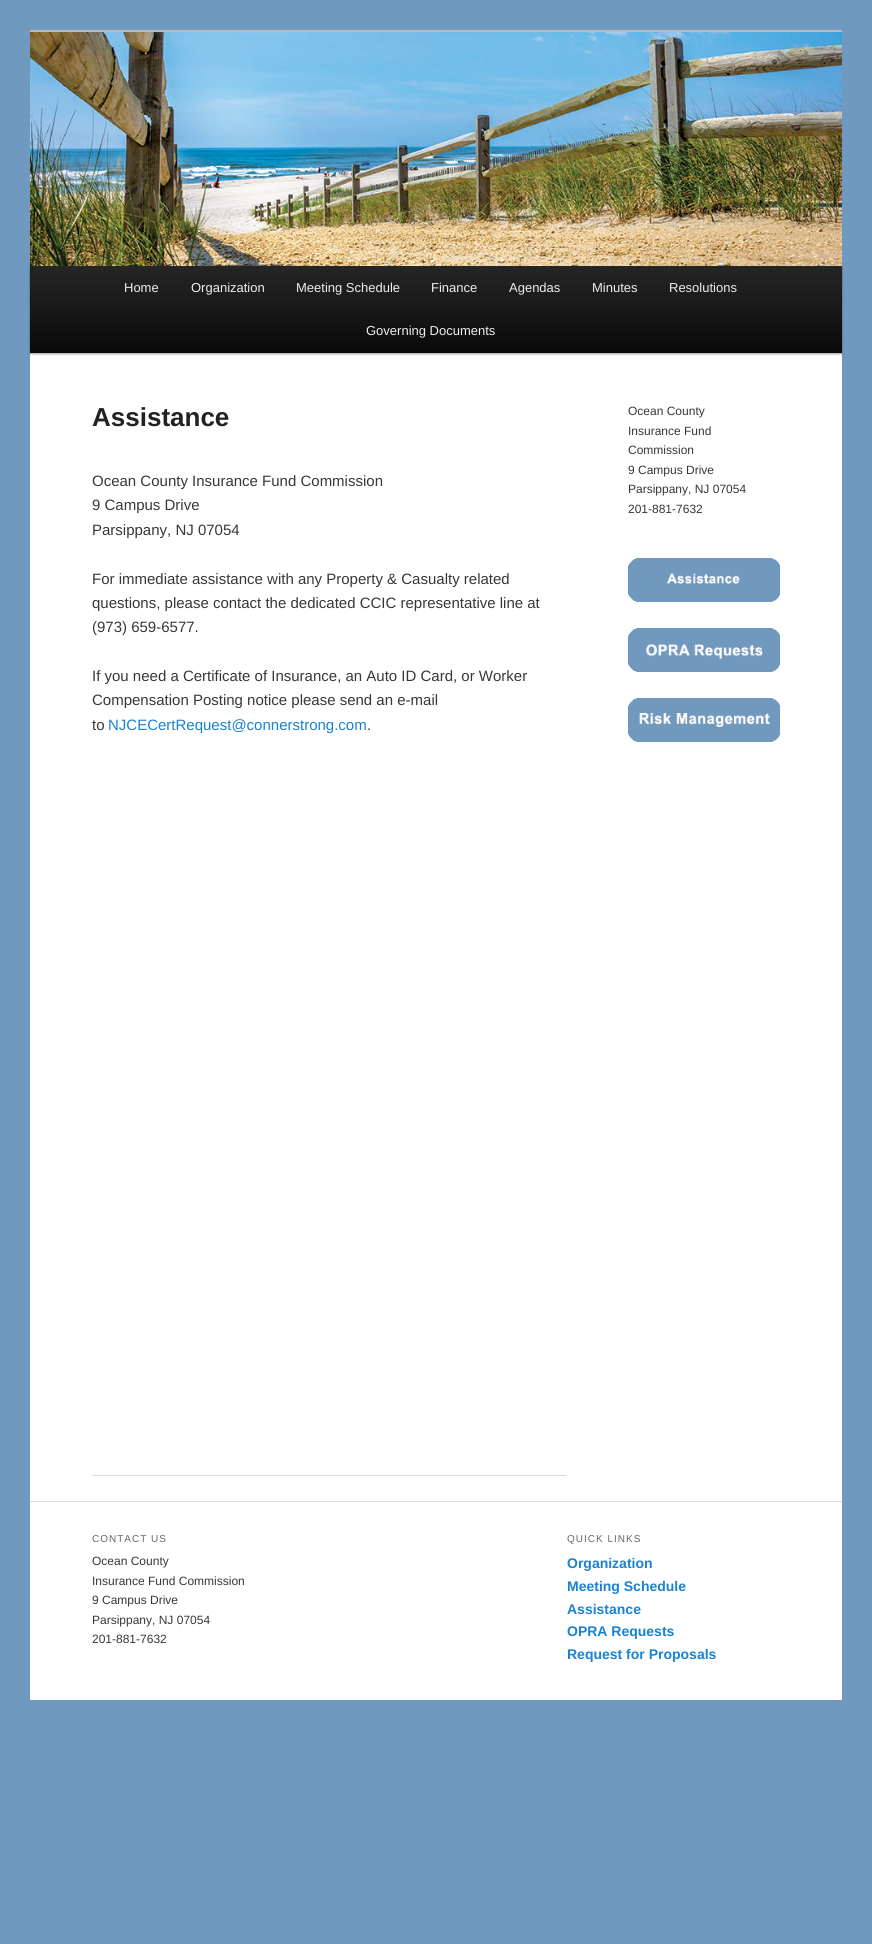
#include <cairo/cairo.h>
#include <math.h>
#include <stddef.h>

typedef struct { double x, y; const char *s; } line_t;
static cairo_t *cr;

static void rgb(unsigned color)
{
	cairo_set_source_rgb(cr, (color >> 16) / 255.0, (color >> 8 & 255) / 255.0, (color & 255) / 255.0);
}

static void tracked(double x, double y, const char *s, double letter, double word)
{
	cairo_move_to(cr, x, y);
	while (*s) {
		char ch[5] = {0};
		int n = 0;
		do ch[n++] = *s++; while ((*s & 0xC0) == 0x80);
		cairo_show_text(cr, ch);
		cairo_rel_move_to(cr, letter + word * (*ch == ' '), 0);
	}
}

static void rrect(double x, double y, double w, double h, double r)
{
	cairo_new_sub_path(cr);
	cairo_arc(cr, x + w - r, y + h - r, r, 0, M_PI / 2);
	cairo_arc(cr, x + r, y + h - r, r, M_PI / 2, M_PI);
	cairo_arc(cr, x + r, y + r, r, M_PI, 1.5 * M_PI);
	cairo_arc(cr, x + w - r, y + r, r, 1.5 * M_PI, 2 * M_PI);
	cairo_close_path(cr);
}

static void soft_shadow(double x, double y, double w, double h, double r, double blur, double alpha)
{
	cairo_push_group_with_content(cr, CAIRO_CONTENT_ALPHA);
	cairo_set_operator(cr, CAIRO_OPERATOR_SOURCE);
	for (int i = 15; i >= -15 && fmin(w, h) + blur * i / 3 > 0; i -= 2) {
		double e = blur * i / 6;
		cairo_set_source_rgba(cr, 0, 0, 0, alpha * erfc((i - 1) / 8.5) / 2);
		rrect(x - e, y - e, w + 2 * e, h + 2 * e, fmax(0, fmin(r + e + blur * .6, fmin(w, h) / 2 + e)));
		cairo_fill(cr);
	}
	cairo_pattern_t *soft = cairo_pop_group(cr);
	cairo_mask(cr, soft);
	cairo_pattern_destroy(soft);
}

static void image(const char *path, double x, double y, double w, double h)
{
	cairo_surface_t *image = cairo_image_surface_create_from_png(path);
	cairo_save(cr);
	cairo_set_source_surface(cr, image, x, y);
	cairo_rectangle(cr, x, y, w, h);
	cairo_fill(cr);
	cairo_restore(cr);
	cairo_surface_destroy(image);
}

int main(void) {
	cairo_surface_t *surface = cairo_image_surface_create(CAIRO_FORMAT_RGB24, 872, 1944);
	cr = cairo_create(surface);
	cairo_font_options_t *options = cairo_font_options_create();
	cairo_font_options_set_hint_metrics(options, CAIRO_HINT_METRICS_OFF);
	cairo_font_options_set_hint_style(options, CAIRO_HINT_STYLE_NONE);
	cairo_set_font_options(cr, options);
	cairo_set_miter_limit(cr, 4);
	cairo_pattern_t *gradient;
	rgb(0x7099bf);
	cairo_paint(cr);
	rgb(0xffffff);
	cairo_rectangle(cr, 30, 353, 812, 1347);
	cairo_fill(cr);
	rgb(0xbbbbbb);
	cairo_rectangle(cr, 30, 30, 812, 2);
	cairo_fill(cr);
	rgb(0x000000);
	soft_shadow(30, 267, 812, 87, 0, 1, 0.4);
	image("img/1.png", 30, 32, 812, 234);
	gradient = cairo_pattern_create_linear(436, 266, 436, 353);
	cairo_pattern_add_color_stop_rgba(gradient, 0, 0.145, 0.145, 0.145, 1);
	cairo_pattern_add_color_stop_rgba(gradient, 1, 0.039, 0.039, 0.039, 1);
	cairo_set_source(cr, gradient);
	cairo_pattern_destroy(gradient);
	cairo_rectangle(cr, 30, 266, 812, 87);
	cairo_fill(cr);
	rgb(0xdddddd);
	cairo_rectangle(cr, 92, 1475, 474, 1);
	cairo_fill(cr);
	image("img/2.png", 628, 558, 152, 44);
	image("img/3.png", 628, 628, 152, 44);
	image("img/4.png", 628, 698, 152, 44);
	cairo_rectangle(cr, 30, 1501, 812, 1);
	cairo_fill(cr);
	cairo_select_font_face(cr, "Liberation Sans", CAIRO_FONT_SLANT_NORMAL, CAIRO_FONT_WEIGHT_NORMAL);
	cairo_set_font_size(cr, 13);
	rgb(0xeeeeee);
	{
		static const line_t items[] = {
			{124, 292, "Home"},
			{191, 292, "Organization"},
			{296, 292, "Meeting Schedule"},
			{431, 292, "Finance"},
			{509, 292, "Agendas"},
			{592, 292, "Minutes"},
			{669, 292, "Resolutions"},
			{366, 335, "Governing Documents"},
		};
		for (size_t i = 0; i < sizeof items / sizeof *items; i++) {
			cairo_move_to(cr, items[i].x, items[i].y);
			cairo_show_text(cr, items[i].s);
		}
	}
	cairo_select_font_face(cr, "Liberation Sans", CAIRO_FONT_SLANT_NORMAL, CAIRO_FONT_WEIGHT_BOLD);
	cairo_set_font_size(cr, 26);
	rgb(0x222222);
	cairo_move_to(cr, 92, 426);
	cairo_show_text(cr, "Assistance");
	cairo_select_font_face(cr, "Liberation Sans", CAIRO_FONT_SLANT_NORMAL, CAIRO_FONT_WEIGHT_NORMAL);
	cairo_set_font_size(cr, 15);
	rgb(0x373737);
	{
		static const line_t items[] = {
			{92, 486, "Ocean County Insurance Fund Commission"},
			{92, 510, "9 Campus Drive"},
			{92, 535, "Parsippany, NJ 07054"},
			{92, 584, "For immediate assistance with any Property & Casualty related"},
			{92, 608, "questions, please contact the dedicated CCIC representative line at"},
			{92, 632, "(973) 659-6577."},
			{92, 681, "If you need a Certificate of Insurance, an Auto ID Card, or Worker"},
			{92, 705, "Compensation Posting notice please send an e-mail"},
			{92, 730, "to"},
		};
		for (size_t i = 0; i < sizeof items / sizeof *items; i++) {
			cairo_move_to(cr, items[i].x, items[i].y);
			cairo_show_text(cr, items[i].s);
		}
	}
	rgb(0x1982d1);
	cairo_move_to(cr, 108, 730);
	cairo_show_text(cr, "NJCECertRequest@connerstrong.com");
	rgb(0x373737);
	cairo_move_to(cr, 367, 730);
	cairo_show_text(cr, ".");
	cairo_set_font_size(cr, 12);
	{
		static const line_t items[] = {
			{628, 415, "Ocean County"},
			{628, 435, "Insurance Fund"},
			{628, 454, "Commission"},
			{628, 474, "9 Campus Drive"},
			{628, 493, "Parsippany, NJ 07054"},
			{628, 513, "201-881-7632"},
		};
		for (size_t i = 0; i < sizeof items / sizeof *items; i++) {
			cairo_move_to(cr, items[i].x, items[i].y);
			cairo_show_text(cr, items[i].s);
		}
	}
	cairo_set_font_size(cr, 10);
	rgb(0x666666);
	tracked(92, 1542, "CONTACT US", 1, 0);
	cairo_set_font_size(cr, 12);
	rgb(0x373737);
	{
		static const line_t items[] = {
			{92, 1565, "Ocean County"},
			{92, 1585, "Insurance Fund Commission"},
			{92, 1604, "9 Campus Drive"},
			{92, 1624, "Parsippany, NJ 07054"},
			{92, 1643, "201-881-7632"},
		};
		for (size_t i = 0; i < sizeof items / sizeof *items; i++) {
			cairo_move_to(cr, items[i].x, items[i].y);
			cairo_show_text(cr, items[i].s);
		}
	}
	cairo_set_font_size(cr, 10);
	rgb(0x666666);
	tracked(567, 1542, "QUICK LINKS", 1, 0);
	cairo_select_font_face(cr, "Liberation Sans", CAIRO_FONT_SLANT_NORMAL, CAIRO_FONT_WEIGHT_BOLD);
	cairo_set_font_size(cr, 14);
	rgb(0x1982d1);
	{
		static const line_t items[] = {
			{567, 1568, "Organization"},
			{567, 1591, "Meeting Schedule"},
			{567, 1614, "Assistance"},
			{567, 1636, "OPRA Requests"},
			{567, 1659, "Request for Proposals"},
		};
		for (size_t i = 0; i < sizeof items / sizeof *items; i++) {
			cairo_move_to(cr, items[i].x, items[i].y);
			cairo_show_text(cr, items[i].s);
		}
	}
	cairo_surface_write_to_png(surface, "page.png");
	cairo_font_options_destroy(options);
	cairo_destroy(cr);
	cairo_surface_destroy(surface);
	return 0;
}
